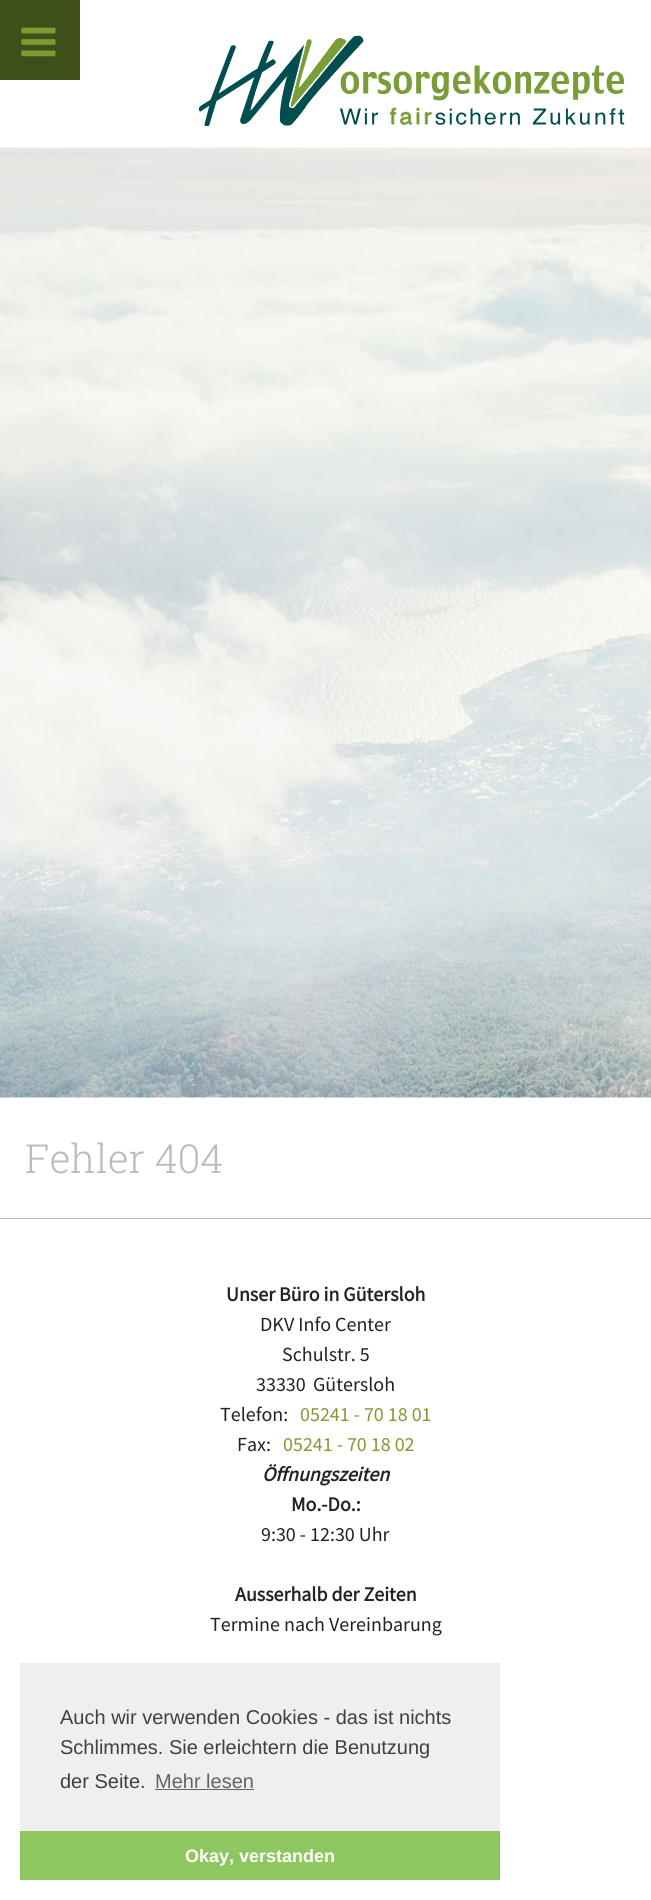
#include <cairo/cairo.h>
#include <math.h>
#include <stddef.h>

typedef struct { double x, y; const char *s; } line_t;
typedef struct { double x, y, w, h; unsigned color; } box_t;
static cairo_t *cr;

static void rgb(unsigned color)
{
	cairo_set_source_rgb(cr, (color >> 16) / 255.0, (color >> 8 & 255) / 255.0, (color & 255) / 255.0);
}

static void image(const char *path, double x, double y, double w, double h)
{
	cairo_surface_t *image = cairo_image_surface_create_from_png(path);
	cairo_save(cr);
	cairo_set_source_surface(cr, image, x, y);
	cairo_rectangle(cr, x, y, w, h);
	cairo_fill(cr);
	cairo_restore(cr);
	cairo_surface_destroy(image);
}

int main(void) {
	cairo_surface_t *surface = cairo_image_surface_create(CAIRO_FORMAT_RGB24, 651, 1900);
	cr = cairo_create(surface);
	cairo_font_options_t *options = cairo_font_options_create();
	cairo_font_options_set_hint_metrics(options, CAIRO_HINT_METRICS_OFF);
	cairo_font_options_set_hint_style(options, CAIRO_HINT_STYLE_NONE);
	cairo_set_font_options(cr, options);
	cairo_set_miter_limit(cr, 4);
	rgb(0xffffff);
	cairo_paint(cr);
	rgb(0x3f4f19);
	cairo_rectangle(cr, 0, 0, 80, 80);
	cairo_fill(cr);
	image("img/1.png", 21, 27, 35, 30);
	image("img/2.png", 198, 35, 427, 92);
	image("img/3.png", 0, 147, 651, 951);
	{
		static const box_t items[] = {
			{0, 1218, 651, 1, 0xbbbbbb},
			{20, 1663, 480, 168, 0xefefef},
			{155, 1789, 99, 1, 0x636363},
			{20, 1831, 480, 49, 0x8ec760},
		};
		for (size_t i = 0; i < sizeof items / sizeof *items; i++) {
			rgb(items[i].color);
			cairo_rectangle(cr, items[i].x, items[i].y, items[i].w, items[i].h);
			cairo_fill(cr);
		}
	}
	cairo_select_font_face(cr, "Roboto Slab Light", CAIRO_FONT_SLANT_NORMAL, CAIRO_FONT_WEIGHT_NORMAL);
	cairo_set_font_size(cr, 40);
	rgb(0xbbbbbb);
	cairo_move_to(cr, 25, 1173);
	cairo_show_text(cr, "Fehler 404");
	cairo_select_font_face(cr, "Source Sans Pro", CAIRO_FONT_SLANT_NORMAL, CAIRO_FONT_WEIGHT_BOLD);
	cairo_set_font_size(cr, 20);
	rgb(0x222222);
	cairo_move_to(cr, 226, 1301);
	cairo_show_text(cr, "Unser Büro in Gütersloh");
	cairo_select_font_face(cr, "Source Sans Pro", CAIRO_FONT_SLANT_NORMAL, CAIRO_FONT_WEIGHT_NORMAL);
	{
		static const line_t items[] = {
			{260, 1331, "DKV Info Center"},
			{282, 1361, "Schulstr. 5"},
			{256, 1391, "33330"},
			{313, 1391, "Gütersloh"},
			{220, 1421, "Telefon:"},
		};
		for (size_t i = 0; i < sizeof items / sizeof *items; i++) {
			cairo_move_to(cr, items[i].x, items[i].y);
			cairo_show_text(cr, items[i].s);
		}
	}
	rgb(0x7c9c32);
	cairo_move_to(cr, 300, 1421);
	cairo_show_text(cr, "05241 - 70 18 01");
	rgb(0x222222);
	cairo_move_to(cr, 237, 1451);
	cairo_show_text(cr, "Fax:");
	rgb(0x7c9c32);
	cairo_move_to(cr, 283, 1451);
	cairo_show_text(cr, "05241 - 70 18 02");
	cairo_select_font_face(cr, "Source Sans Pro", CAIRO_FONT_SLANT_ITALIC, CAIRO_FONT_WEIGHT_BOLD);
	rgb(0x222222);
	cairo_move_to(cr, 262, 1481);
	cairo_show_text(cr, "Öffnungszeiten");
	cairo_select_font_face(cr, "Source Sans Pro", CAIRO_FONT_SLANT_NORMAL, CAIRO_FONT_WEIGHT_BOLD);
	cairo_move_to(cr, 291, 1511);
	cairo_show_text(cr, "Mo.-Do.:");
	cairo_select_font_face(cr, "Source Sans Pro", CAIRO_FONT_SLANT_NORMAL, CAIRO_FONT_WEIGHT_NORMAL);
	cairo_move_to(cr, 261, 1541);
	cairo_show_text(cr, "9:30 - 12:30 Uhr");
	cairo_select_font_face(cr, "Source Sans Pro", CAIRO_FONT_SLANT_NORMAL, CAIRO_FONT_WEIGHT_BOLD);
	cairo_move_to(cr, 235, 1601);
	cairo_show_text(cr, "Ausserhalb der Zeiten");
	cairo_select_font_face(cr, "Source Sans Pro", CAIRO_FONT_SLANT_NORMAL, CAIRO_FONT_WEIGHT_NORMAL);
	cairo_move_to(cr, 210, 1631);
	cairo_show_text(cr, "Termine nach Vereinbarung");
	cairo_select_font_face(cr, "Liberation Sans", CAIRO_FONT_SLANT_NORMAL, CAIRO_FONT_WEIGHT_NORMAL);
	rgb(0x404040);
	{
		static const line_t items[] = {
			{60, 1724, "Auch wir verwenden Cookies - das ist nichts"},
			{60, 1754, "Schlimmes. Sie erleichtern die Benutzung"},
			{60, 1788, "der Seite."},
		};
		for (size_t i = 0; i < sizeof items / sizeof *items; i++) {
			cairo_move_to(cr, items[i].x, items[i].y);
			cairo_show_text(cr, items[i].s);
		}
	}
	rgb(0x636363);
	cairo_move_to(cr, 155, 1788);
	cairo_show_text(cr, "Mehr lesen");
	cairo_select_font_face(cr, "Liberation Sans", CAIRO_FONT_SLANT_NORMAL, CAIRO_FONT_WEIGHT_BOLD);
	cairo_set_font_size(cr, 18);
	rgb(0xffffff);
	cairo_move_to(cr, 185, 1862);
	cairo_show_text(cr, "Okay, verstanden");
	cairo_surface_write_to_png(surface, "page.png");
	cairo_font_options_destroy(options);
	cairo_destroy(cr);
	cairo_surface_destroy(surface);
	return 0;
}
